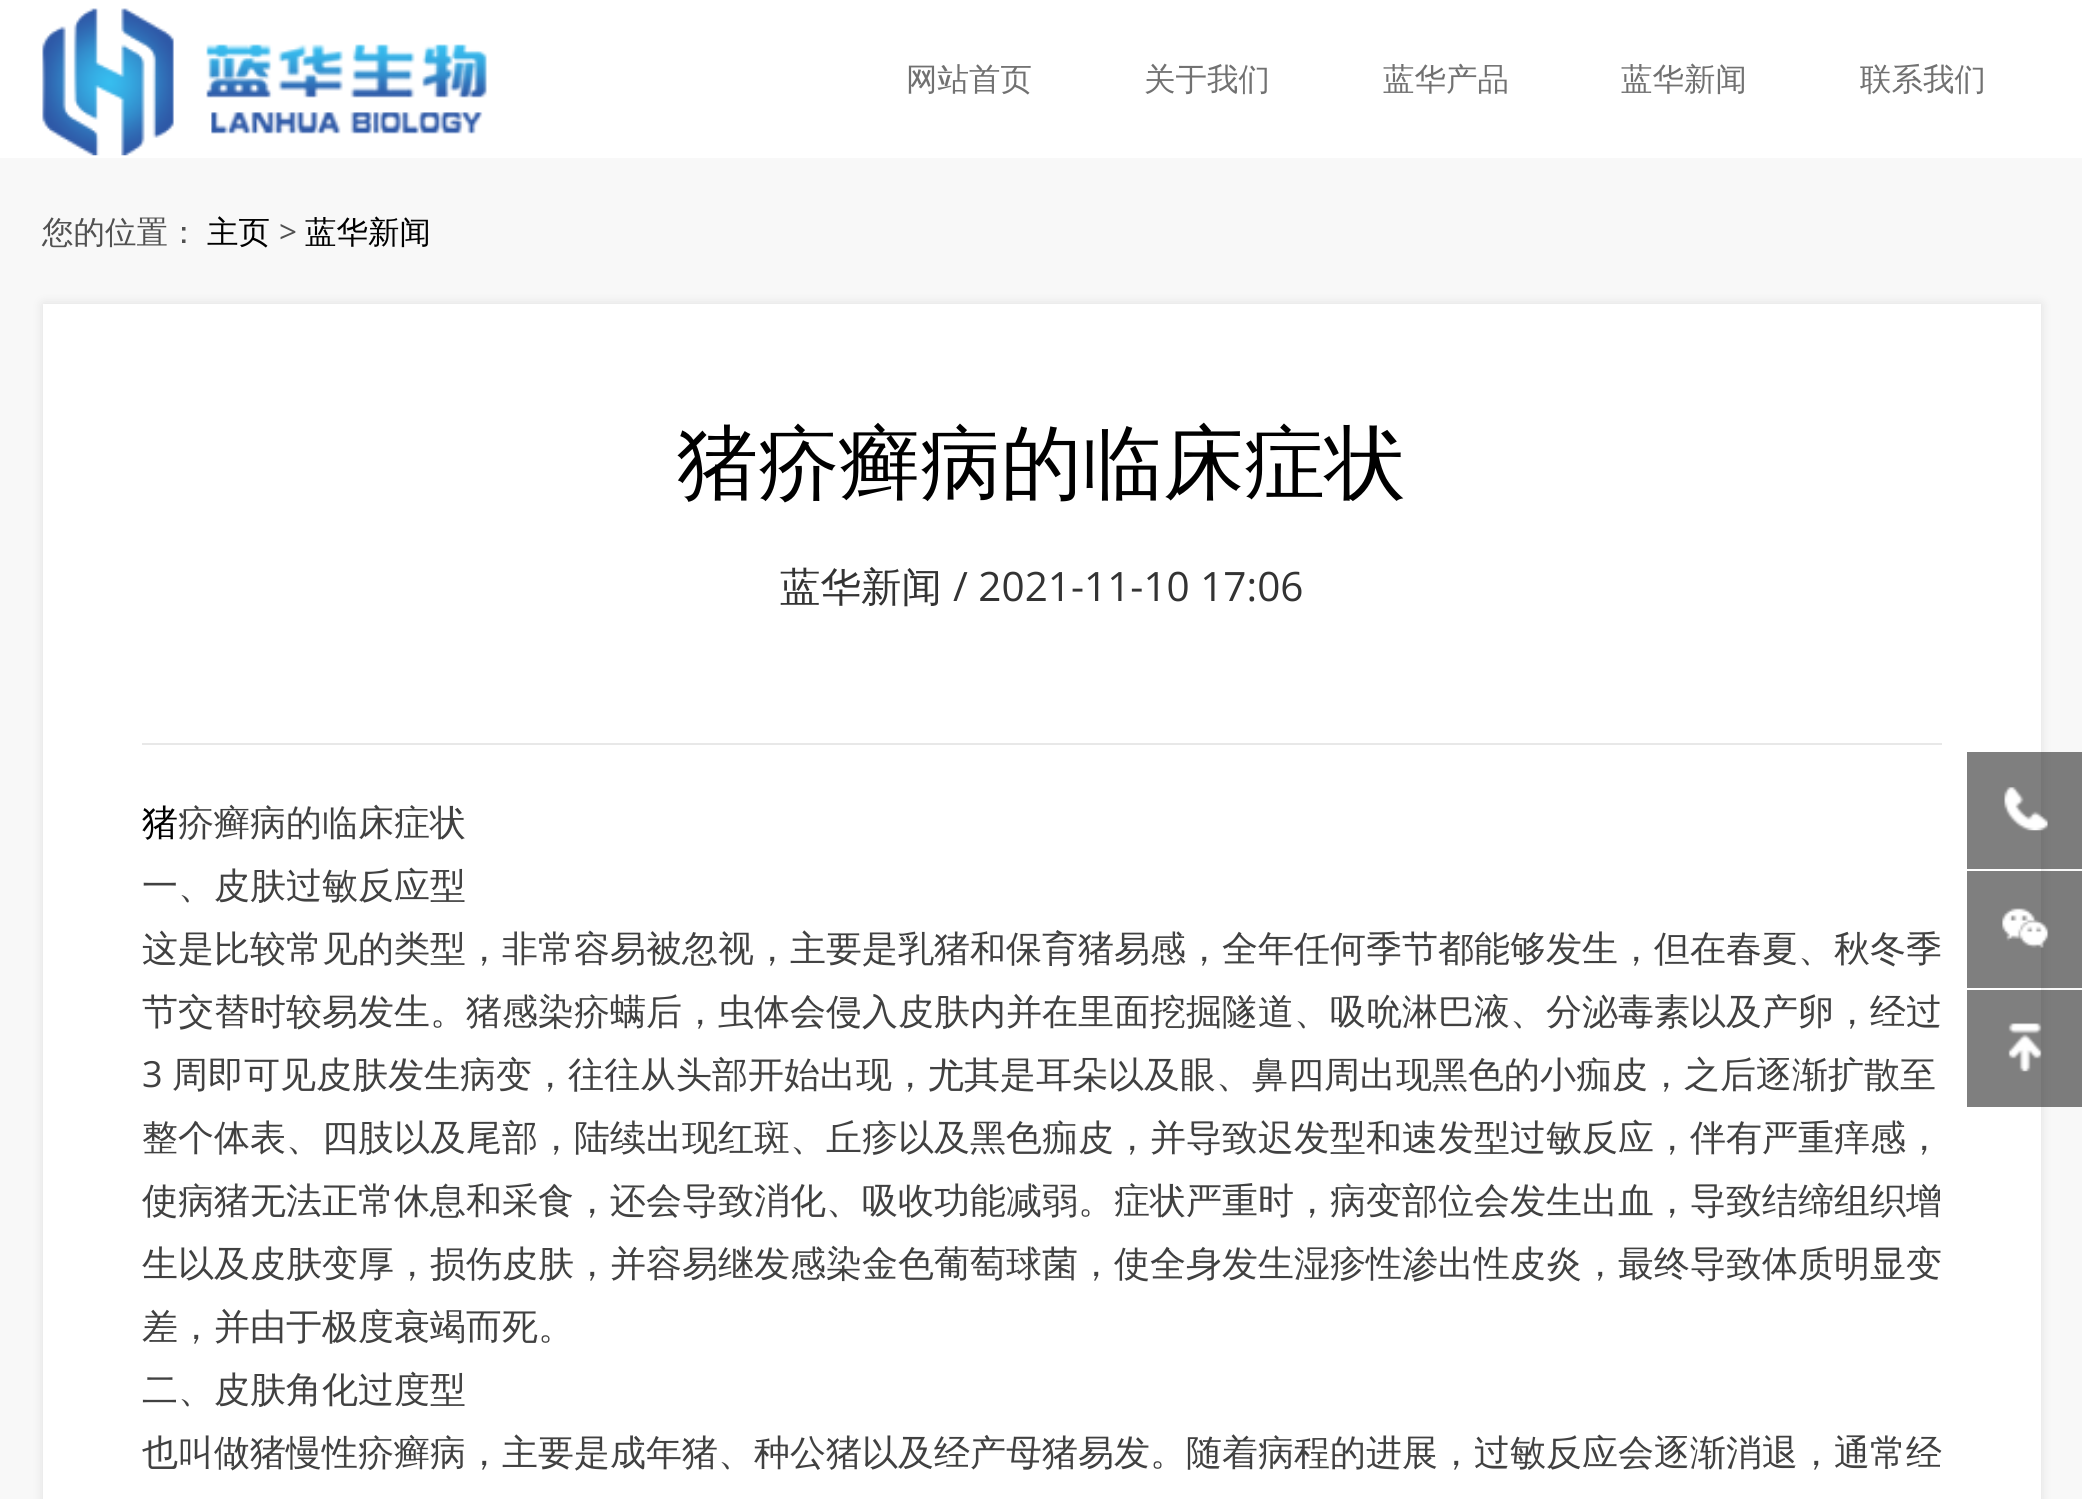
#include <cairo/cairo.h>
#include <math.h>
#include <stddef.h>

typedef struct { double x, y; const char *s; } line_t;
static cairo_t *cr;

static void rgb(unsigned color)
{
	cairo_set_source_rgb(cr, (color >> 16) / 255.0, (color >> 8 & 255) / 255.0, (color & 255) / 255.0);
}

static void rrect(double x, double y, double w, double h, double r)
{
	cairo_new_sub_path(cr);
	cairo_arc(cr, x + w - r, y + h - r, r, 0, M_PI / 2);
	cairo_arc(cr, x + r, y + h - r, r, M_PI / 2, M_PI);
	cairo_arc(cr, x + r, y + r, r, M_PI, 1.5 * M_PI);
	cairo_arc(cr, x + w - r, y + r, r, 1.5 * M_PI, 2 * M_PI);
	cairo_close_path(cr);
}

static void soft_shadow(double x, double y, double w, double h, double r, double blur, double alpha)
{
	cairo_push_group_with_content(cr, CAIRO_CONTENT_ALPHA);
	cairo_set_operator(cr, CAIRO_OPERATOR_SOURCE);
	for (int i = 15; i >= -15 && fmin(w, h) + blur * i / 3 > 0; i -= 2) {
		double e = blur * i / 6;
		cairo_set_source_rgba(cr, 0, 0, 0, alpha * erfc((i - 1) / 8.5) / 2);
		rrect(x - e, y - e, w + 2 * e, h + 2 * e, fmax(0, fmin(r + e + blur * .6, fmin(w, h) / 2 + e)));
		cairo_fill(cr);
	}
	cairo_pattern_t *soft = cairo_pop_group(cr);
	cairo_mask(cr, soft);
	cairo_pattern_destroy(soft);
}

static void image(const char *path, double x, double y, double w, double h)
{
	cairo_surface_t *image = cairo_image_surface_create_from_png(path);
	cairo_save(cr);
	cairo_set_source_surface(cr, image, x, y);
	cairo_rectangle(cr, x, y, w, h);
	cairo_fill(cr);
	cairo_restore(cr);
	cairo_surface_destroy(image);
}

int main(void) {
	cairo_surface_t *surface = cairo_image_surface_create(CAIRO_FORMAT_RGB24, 2082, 1499);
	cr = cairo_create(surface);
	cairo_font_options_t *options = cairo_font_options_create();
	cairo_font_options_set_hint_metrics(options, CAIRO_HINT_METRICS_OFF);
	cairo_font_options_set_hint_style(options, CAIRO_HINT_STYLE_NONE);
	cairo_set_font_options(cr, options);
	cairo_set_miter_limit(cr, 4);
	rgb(0xf8f8f8);
	cairo_paint(cr);
	rgb(0xffffff);
	cairo_rectangle(cr, 0, 0, 2082, 158);
	cairo_fill(cr);
	image("img/1.png", 42, 8, 445, 148);
	rgb(0x000000);
	soft_shadow(43, 304, 1998, 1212, 0, 5.5, 0.1);
	rgb(0xffffff);
	cairo_rectangle(cr, 43, 304, 1998, 1195);
	cairo_fill(cr);
	rgb(0xe8e8e8);
	cairo_rectangle(cr, 142, 743, 1800, 2);
	cairo_fill(cr);
	cairo_set_source_rgba(cr, 0, 0, 0, 0.5);
	cairo_rectangle(cr, 1967, 752, 115, 117);
	cairo_fill(cr);
	image("img/2.png", 2004, 787, 44, 44);
	cairo_rectangle(cr, 1967, 871, 115, 117);
	cairo_fill(cr);
	image("img/3.png", 2002, 908, 47, 40);
	cairo_rectangle(cr, 1967, 990, 115, 117);
	cairo_fill(cr);
	image("img/4.png", 2008, 1023, 34, 49);
	cairo_select_font_face(cr, "WenQuanYi Zen Hei Medium", CAIRO_FONT_SLANT_NORMAL, CAIRO_FONT_WEIGHT_NORMAL);
	cairo_set_font_size(cr, 31.5);
	rgb(0x717171);
	{
		static const line_t items[] = {
			{906, 90, "网站首页"},
			{1144, 90, "关于我们"},
			{1383, 90, "蓝华产品"},
			{1621, 90, "蓝华新闻"},
			{1860, 90, "联系我们"},
		};
		for (size_t i = 0; i < sizeof items / sizeof *items; i++) {
			cairo_move_to(cr, items[i].x, items[i].y);
			cairo_show_text(cr, items[i].s);
		}
	}
	rgb(0x515151);
	cairo_move_to(cr, 42, 243);
	cairo_show_text(cr, "您的位置：");
	rgb(0x000000);
	cairo_move_to(cr, 207, 243);
	cairo_show_text(cr, "主页");
	cairo_select_font_face(cr, "Open Sans", CAIRO_FONT_SLANT_NORMAL, CAIRO_FONT_WEIGHT_NORMAL);
	rgb(0x515151);
	cairo_move_to(cr, 279, 243);
	cairo_show_text(cr, ">");
	cairo_select_font_face(cr, "WenQuanYi Zen Hei Medium", CAIRO_FONT_SLANT_NORMAL, CAIRO_FONT_WEIGHT_NORMAL);
	rgb(0x000000);
	cairo_move_to(cr, 305, 243);
	cairo_show_text(cr, "蓝华新闻");
	cairo_set_font_size(cr, 81);
	cairo_move_to(cr, 677, 491);
	cairo_show_text(cr, "猪疥癣病的临床症状");
	cairo_set_font_size(cr, 40.5);
	rgb(0x333333);
	cairo_move_to(cr, 780, 601);
	cairo_show_text(cr, "蓝华新闻");
	cairo_select_font_face(cr, "Open Sans", CAIRO_FONT_SLANT_NORMAL, CAIRO_FONT_WEIGHT_NORMAL);
	cairo_move_to(cr, 953, 601);
	cairo_show_text(cr, "/ 2021-11-10 17:06");
	cairo_select_font_face(cr, "WenQuanYi Zen Hei Medium", CAIRO_FONT_SLANT_NORMAL, CAIRO_FONT_WEIGHT_NORMAL);
	cairo_set_font_size(cr, 36);
	rgb(0x000000);
	cairo_move_to(cr, 142, 835);
	cairo_show_text(cr, "猪");
	rgb(0x414141);
	{
		static const line_t items[] = {
			{178, 835, "疥癣病的临床症状"},
			{142, 898, "一、皮肤过敏反应型"},
			{142, 961, "这是比较常见的类型，非常容易被忽视，主要是乳猪和保育猪易感，全年任何季节都能够发生，但在春夏、秋冬季"},
			{142, 1024, "节交替时较易发生。猪感染疥螨后，虫体会侵入皮肤内并在里面挖掘隧道、吸吮淋巴液、分泌毒素以及产卵，经过"},
		};
		for (size_t i = 0; i < sizeof items / sizeof *items; i++) {
			cairo_move_to(cr, items[i].x, items[i].y);
			cairo_show_text(cr, items[i].s);
		}
	}
	cairo_select_font_face(cr, "Open Sans", CAIRO_FONT_SLANT_NORMAL, CAIRO_FONT_WEIGHT_NORMAL);
	cairo_move_to(cr, 142, 1087);
	cairo_show_text(cr, "3");
	cairo_select_font_face(cr, "WenQuanYi Zen Hei Medium", CAIRO_FONT_SLANT_NORMAL, CAIRO_FONT_WEIGHT_NORMAL);
	{
		static const line_t items[] = {
			{172, 1087, "周即可见皮肤发生病变，往往从头部开始出现，尤其是耳朵以及眼、鼻四周出现黑色的小痂皮，之后逐渐扩散至"},
			{142, 1150, "整个体表、四肢以及尾部，陆续出现红斑、丘疹以及黑色痂皮，并导致迟发型和速发型过敏反应，伴有严重痒感，"},
			{142, 1213, "使病猪无法正常休息和采食，还会导致消化、吸收功能减弱。症状严重时，病变部位会发生出血，导致结缔组织增"},
			{142, 1276, "生以及皮肤变厚，损伤皮肤，并容易继发感染金色葡萄球菌，使全身发生湿疹性渗出性皮炎，最终导致体质明显变"},
			{142, 1339, "差，并由于极度衰竭而死。"},
			{142, 1402, "二、皮肤角化过度型"},
			{142, 1465, "也叫做猪慢性疥癣病，主要是成年猪、种公猪以及经产母猪易发。随着病程的进展，过敏反应会逐渐消退，通常经"},
		};
		for (size_t i = 0; i < sizeof items / sizeof *items; i++) {
			cairo_move_to(cr, items[i].x, items[i].y);
			cairo_show_text(cr, items[i].s);
		}
	}
	cairo_surface_write_to_png(surface, "page.png");
	cairo_font_options_destroy(options);
	cairo_destroy(cr);
	cairo_surface_destroy(surface);
	return 0;
}
